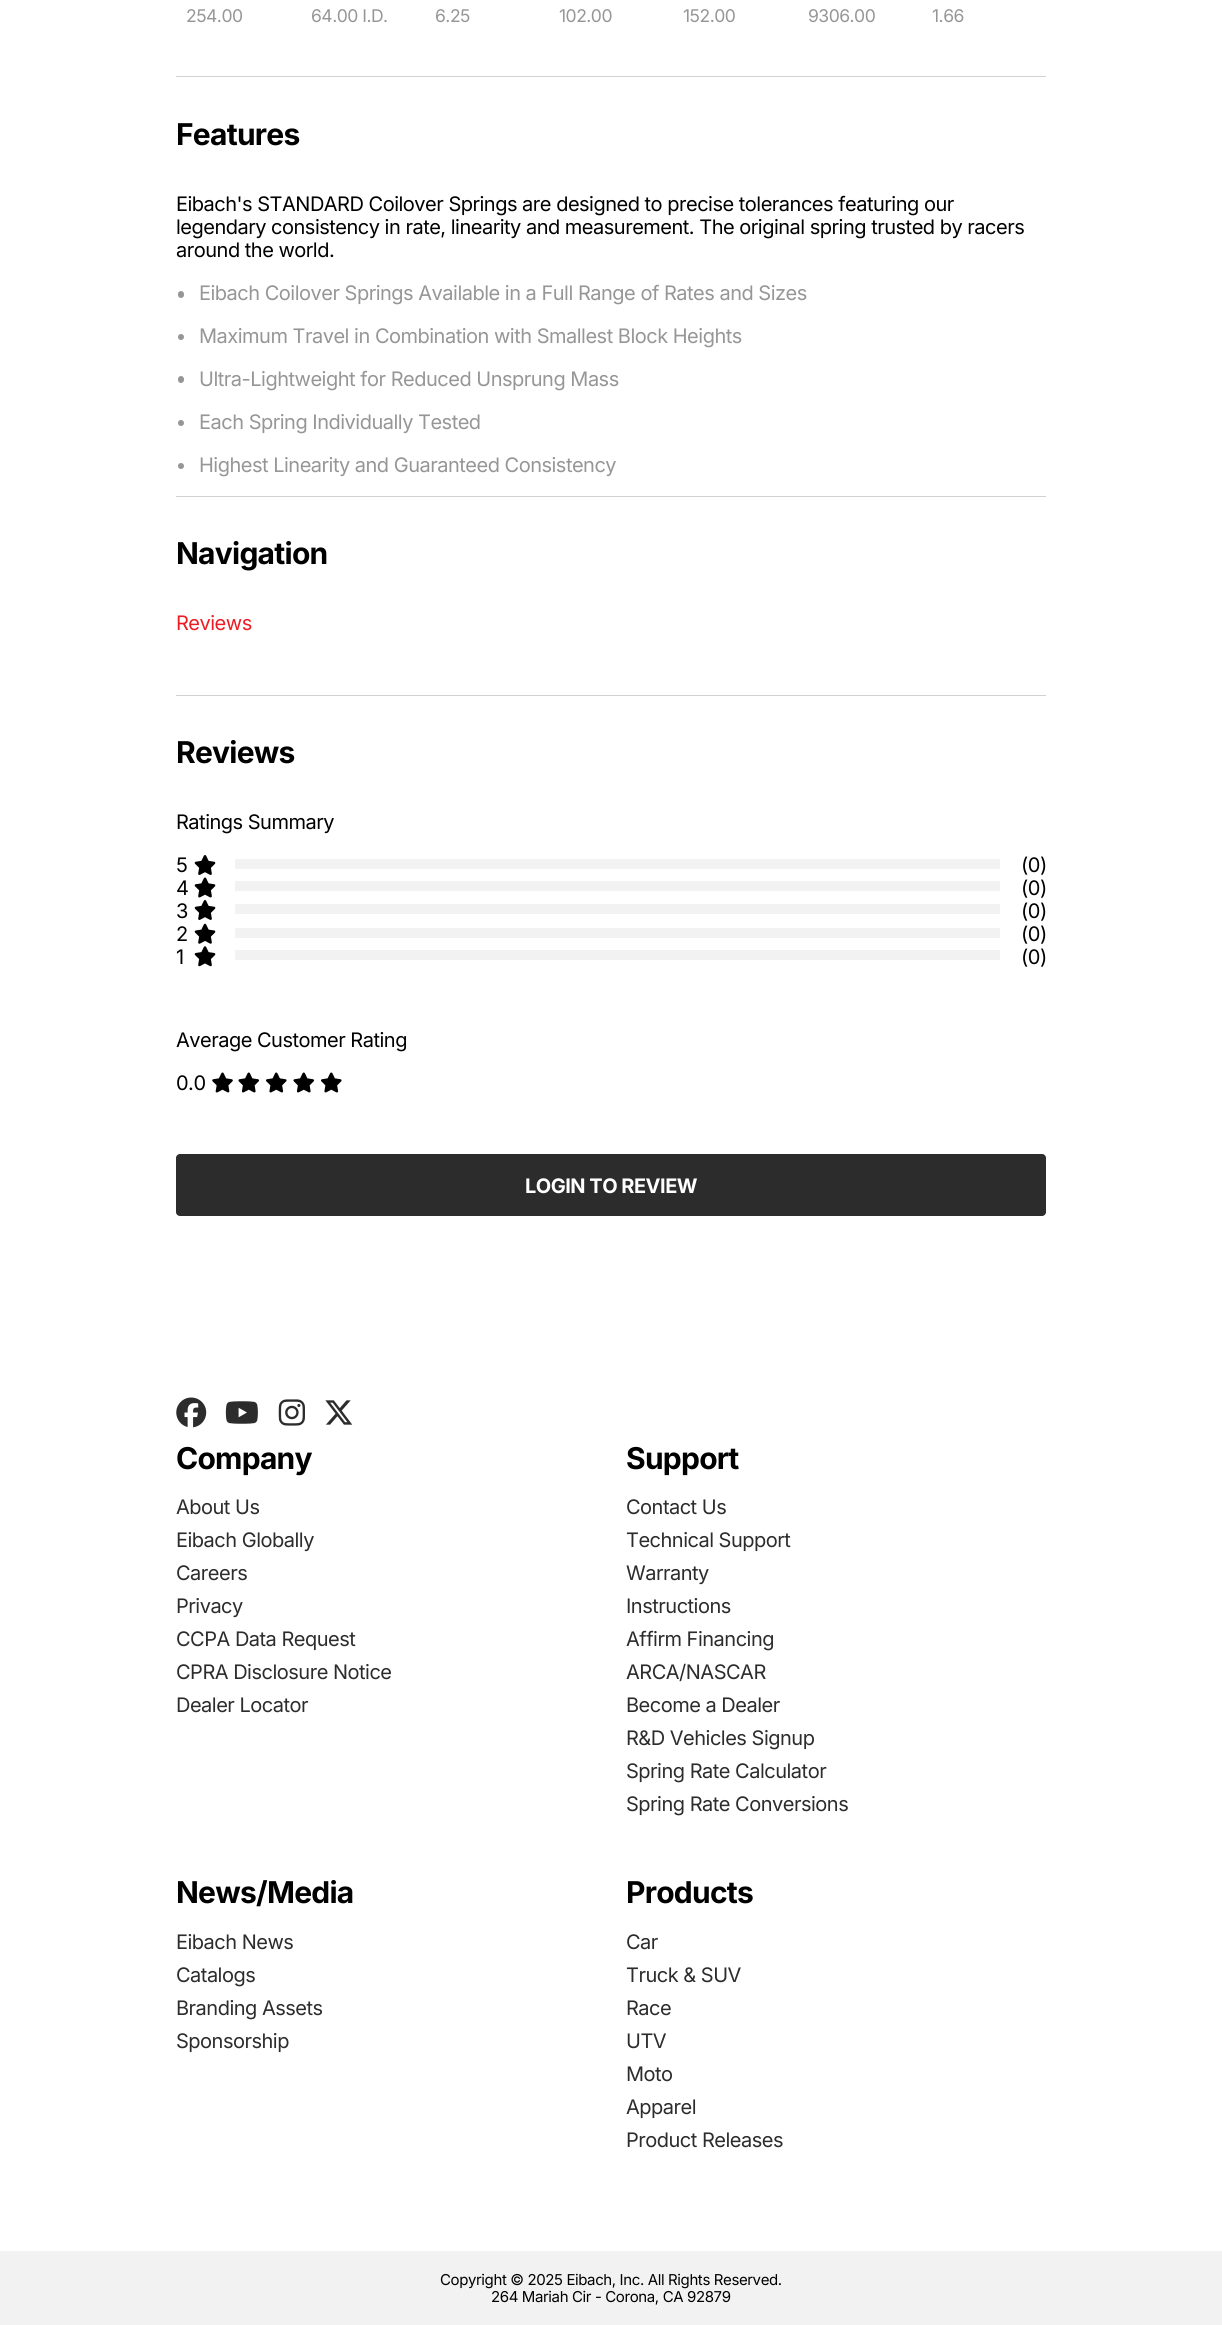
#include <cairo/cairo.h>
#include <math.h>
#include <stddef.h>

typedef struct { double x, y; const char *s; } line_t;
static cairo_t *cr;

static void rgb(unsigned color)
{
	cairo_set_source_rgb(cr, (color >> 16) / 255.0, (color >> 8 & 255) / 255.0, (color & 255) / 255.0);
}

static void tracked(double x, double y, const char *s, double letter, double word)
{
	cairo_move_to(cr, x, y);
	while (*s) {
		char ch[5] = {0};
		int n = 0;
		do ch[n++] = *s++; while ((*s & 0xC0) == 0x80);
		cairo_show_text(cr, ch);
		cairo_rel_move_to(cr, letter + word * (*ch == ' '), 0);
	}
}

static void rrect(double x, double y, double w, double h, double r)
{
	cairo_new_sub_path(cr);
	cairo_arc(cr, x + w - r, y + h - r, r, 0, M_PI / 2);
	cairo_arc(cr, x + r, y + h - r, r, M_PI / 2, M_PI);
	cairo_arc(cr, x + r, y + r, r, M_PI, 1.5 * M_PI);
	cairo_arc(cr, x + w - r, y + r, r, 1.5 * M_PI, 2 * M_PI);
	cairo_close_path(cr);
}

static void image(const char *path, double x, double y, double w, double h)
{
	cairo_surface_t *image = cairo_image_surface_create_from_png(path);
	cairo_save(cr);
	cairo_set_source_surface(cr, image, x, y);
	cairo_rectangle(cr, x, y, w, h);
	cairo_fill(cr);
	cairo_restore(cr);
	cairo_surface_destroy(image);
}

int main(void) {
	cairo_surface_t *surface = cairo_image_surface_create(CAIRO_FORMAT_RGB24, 1222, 2325);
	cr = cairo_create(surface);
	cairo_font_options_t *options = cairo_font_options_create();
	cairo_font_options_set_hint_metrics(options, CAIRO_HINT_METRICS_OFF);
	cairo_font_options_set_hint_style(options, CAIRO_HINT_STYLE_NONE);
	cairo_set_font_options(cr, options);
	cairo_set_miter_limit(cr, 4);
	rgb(0xffffff);
	cairo_paint(cr);
	rgb(0xd2d2d2);
	cairo_rectangle(cr, 176, 76, 870, 1);
	cairo_fill(cr);
	rgb(0x969696);
	rrect(178, 291, 6, 7, 3);
	cairo_fill(cr);
	cairo_arc(cr, 181, 337, 3, 0, 2 * M_PI);
	cairo_fill(cr);
	rrect(178, 376, 6, 7, 3);
	cairo_fill(cr);
	cairo_arc(cr, 181, 423, 3, 0, 2 * M_PI);
	cairo_fill(cr);
	cairo_arc(cr, 181, 466, 3, 0, 2 * M_PI);
	cairo_fill(cr);
	rgb(0xd2d2d2);
	cairo_rectangle(cr, 176, 496, 870, 1);
	cairo_fill(cr);
	cairo_rectangle(cr, 176, 695, 870, 1);
	cairo_fill(cr);
	image("img/1.png", 194, 855, 22, 20);
	rgb(0xf2f2f2);
	cairo_rectangle(cr, 235, 859, 765, 10);
	cairo_fill(cr);
	image("img/2.png", 194, 877, 22, 21);
	cairo_rectangle(cr, 235, 881, 765, 10);
	cairo_fill(cr);
	image("img/1.png", 194, 900, 22, 20);
	cairo_rectangle(cr, 235, 904, 765, 10);
	cairo_fill(cr);
	image("img/3.png", 194, 923, 22, 21);
	cairo_rectangle(cr, 235, 928, 765, 10);
	cairo_fill(cr);
	image("img/4.png", 194, 946, 22, 21);
	cairo_rectangle(cr, 235, 950, 765, 10);
	cairo_fill(cr);
	image("img/5.png", 212, 1072, 21, 21);
	image("img/6.png", 238, 1072, 22, 21);
	image("img/7.png", 266, 1072, 21, 21);
	image("img/6.png", 293, 1072, 22, 21);
	image("img/7.png", 321, 1072, 21, 21);
	rgb(0x2c2c2c);
	rrect(176, 1154, 870, 62, 4);
	cairo_fill(cr);
	image("img/8.png", 176, 1397, 31, 31);
	image("img/9.png", 225, 1401, 33, 23);
	image("img/10.png", 278, 1399, 27, 27);
	image("img/11.png", 325, 1400, 28, 25);
	rgb(0xf2f2f2);
	cairo_rectangle(cr, 0, 2251, 1222, 74);
	cairo_fill(cr);
	cairo_select_font_face(cr, "Inter", CAIRO_FONT_SLANT_NORMAL, CAIRO_FONT_WEIGHT_NORMAL);
	cairo_set_font_size(cr, 17.5);
	rgb(0x969696);
	{
		static const line_t items[] = {
			{186, 22, "254.00"},
			{311, 22, "64.00 I.D."},
			{435, 22, "6.25"},
			{559, 22, "102.00"},
			{683, 22, "152.00"},
			{808, 22, "9306.00"},
			{932, 22, "1.66"},
		};
		for (size_t i = 0; i < sizeof items / sizeof *items; i++) {
			tracked(items[i].x, items[i].y, items[i].s, -0.5, 0);
		}
	}
	cairo_select_font_face(cr, "Inter", CAIRO_FONT_SLANT_NORMAL, CAIRO_FONT_WEIGHT_BOLD);
	cairo_set_font_size(cr, 30);
	rgb(0x000000);
	tracked(176, 145, "Features", -0.75, 0);
	cairo_select_font_face(cr, "Inter", CAIRO_FONT_SLANT_NORMAL, CAIRO_FONT_WEIGHT_NORMAL);
	cairo_set_font_size(cr, 20);
	{
		static const line_t items[] = {
			{176, 211, "Eibach's STANDARD Coilover Springs are designed to precise tolerances featuring our"},
			{176, 234, "legendary consistency in rate, linearity and measurement. The original spring trusted by racers"},
			{176, 257, "around the world."},
		};
		for (size_t i = 0; i < sizeof items / sizeof *items; i++) {
			tracked(items[i].x, items[i].y, items[i].s, -0.5, 0);
		}
	}
	rgb(0x969696);
	{
		static const line_t items[] = {
			{199, 300, "Eibach Coilover Springs Available in a Full Range of Rates and Sizes"},
			{199, 343, "Maximum Travel in Combination with Smallest Block Heights"},
			{199, 386, "Ultra-Lightweight for Reduced Unsprung Mass"},
			{199, 429, "Each Spring Individually Tested"},
			{199, 472, "Highest Linearity and Guaranteed Consistency"},
		};
		for (size_t i = 0; i < sizeof items / sizeof *items; i++) {
			tracked(items[i].x, items[i].y, items[i].s, -0.5, 0);
		}
	}
	cairo_select_font_face(cr, "Inter", CAIRO_FONT_SLANT_NORMAL, CAIRO_FONT_WEIGHT_BOLD);
	cairo_set_font_size(cr, 30);
	rgb(0x000000);
	tracked(176, 564, "Navigation", -0.75, 0);
	cairo_select_font_face(cr, "Inter", CAIRO_FONT_SLANT_NORMAL, CAIRO_FONT_WEIGHT_NORMAL);
	cairo_set_font_size(cr, 20);
	rgb(0xed1c24);
	tracked(176, 630, "Reviews", -0.5, 0);
	cairo_select_font_face(cr, "Inter", CAIRO_FONT_SLANT_NORMAL, CAIRO_FONT_WEIGHT_BOLD);
	cairo_set_font_size(cr, 30);
	rgb(0x000000);
	tracked(176, 763, "Reviews", -0.75, 0);
	cairo_select_font_face(cr, "Inter", CAIRO_FONT_SLANT_NORMAL, CAIRO_FONT_WEIGHT_NORMAL);
	cairo_set_font_size(cr, 20);
	{
		static const line_t items[] = {
			{176, 829, "Ratings Summary"},
			{176, 872, "5"},
			{1021, 872, "(0)"},
			{176, 895, "4"},
			{1021, 895, "(0)"},
			{176, 918, "3"},
			{1021, 918, "(0)"},
			{176, 941, "2"},
			{1021, 941, "(0)"},
			{176, 964, "1"},
			{1021, 964, "(0)"},
			{176, 1047, "Average Customer Rating"},
			{176, 1090, "0.0"},
		};
		for (size_t i = 0; i < sizeof items / sizeof *items; i++) {
			tracked(items[i].x, items[i].y, items[i].s, -0.5, 0);
		}
	}
	cairo_select_font_face(cr, "Inter", CAIRO_FONT_SLANT_NORMAL, CAIRO_FONT_WEIGHT_BOLD);
	rgb(0xffffff);
	tracked(525, 1193, "LOGIN TO REVIEW", -0.5, 0);
	cairo_set_font_size(cr, 30);
	rgb(0x000000);
	tracked(176, 1469, "Company", -0.75, 0);
	cairo_select_font_face(cr, "Inter", CAIRO_FONT_SLANT_NORMAL, CAIRO_FONT_WEIGHT_NORMAL);
	cairo_set_font_size(cr, 20);
	rgb(0x2c2c2c);
	{
		static const line_t items[] = {
			{176, 1514, "About Us"},
			{176, 1547, "Eibach Globally"},
			{176, 1580, "Careers"},
			{176, 1613, "Privacy"},
			{176, 1646, "CCPA Data Request"},
			{176, 1679, "CPRA Disclosure Notice"},
			{176, 1712, "Dealer Locator"},
		};
		for (size_t i = 0; i < sizeof items / sizeof *items; i++) {
			tracked(items[i].x, items[i].y, items[i].s, -0.5, 0);
		}
	}
	cairo_select_font_face(cr, "Inter", CAIRO_FONT_SLANT_NORMAL, CAIRO_FONT_WEIGHT_BOLD);
	cairo_set_font_size(cr, 30);
	rgb(0x000000);
	tracked(626, 1469, "Support", -0.75, 0);
	cairo_select_font_face(cr, "Inter", CAIRO_FONT_SLANT_NORMAL, CAIRO_FONT_WEIGHT_NORMAL);
	cairo_set_font_size(cr, 20);
	rgb(0x2c2c2c);
	{
		static const line_t items[] = {
			{626, 1514, "Contact Us"},
			{626, 1547, "Technical Support"},
			{626, 1580, "Warranty"},
			{626, 1613, "Instructions"},
			{626, 1646, "Affirm Financing"},
			{626, 1679, "ARCA/NASCAR"},
			{626, 1712, "Become a Dealer"},
			{626, 1745, "R&D Vehicles Signup"},
			{626, 1778, "Spring Rate Calculator"},
			{626, 1811, "Spring Rate Conversions"},
		};
		for (size_t i = 0; i < sizeof items / sizeof *items; i++) {
			tracked(items[i].x, items[i].y, items[i].s, -0.5, 0);
		}
	}
	cairo_select_font_face(cr, "Inter", CAIRO_FONT_SLANT_NORMAL, CAIRO_FONT_WEIGHT_BOLD);
	cairo_set_font_size(cr, 30);
	rgb(0x000000);
	tracked(176, 1903, "News/Media", -0.75, 0);
	cairo_select_font_face(cr, "Inter", CAIRO_FONT_SLANT_NORMAL, CAIRO_FONT_WEIGHT_NORMAL);
	cairo_set_font_size(cr, 20);
	rgb(0x2c2c2c);
	{
		static const line_t items[] = {
			{176, 1949, "Eibach News"},
			{176, 1982, "Catalogs"},
			{176, 2015, "Branding Assets"},
			{176, 2048, "Sponsorship"},
		};
		for (size_t i = 0; i < sizeof items / sizeof *items; i++) {
			tracked(items[i].x, items[i].y, items[i].s, -0.5, 0);
		}
	}
	cairo_select_font_face(cr, "Inter", CAIRO_FONT_SLANT_NORMAL, CAIRO_FONT_WEIGHT_BOLD);
	cairo_set_font_size(cr, 30);
	rgb(0x000000);
	tracked(626, 1903, "Products", -0.75, 0);
	cairo_select_font_face(cr, "Inter", CAIRO_FONT_SLANT_NORMAL, CAIRO_FONT_WEIGHT_NORMAL);
	cairo_set_font_size(cr, 20);
	rgb(0x2c2c2c);
	{
		static const line_t items[] = {
			{626, 1949, "Car"},
			{626, 1982, "Truck & SUV"},
			{626, 2015, "Race"},
			{626, 2048, "UTV"},
			{626, 2081, "Moto"},
			{626, 2114, "Apparel"},
			{626, 2147, "Product Releases"},
		};
		for (size_t i = 0; i < sizeof items / sizeof *items; i++) {
			tracked(items[i].x, items[i].y, items[i].s, -0.5, 0);
		}
	}
	cairo_set_font_size(cr, 15);
	rgb(0x000000);
	tracked(440, 2285, "Copyright © 2025 Eibach, Inc. All Rights Reserved.", -0.38, 0);
	tracked(491, 2302, "264 Mariah Cir - Corona, CA 92879", -0.38, 0);
	cairo_surface_write_to_png(surface, "page.png");
	cairo_font_options_destroy(options);
	cairo_destroy(cr);
	cairo_surface_destroy(surface);
	return 0;
}
